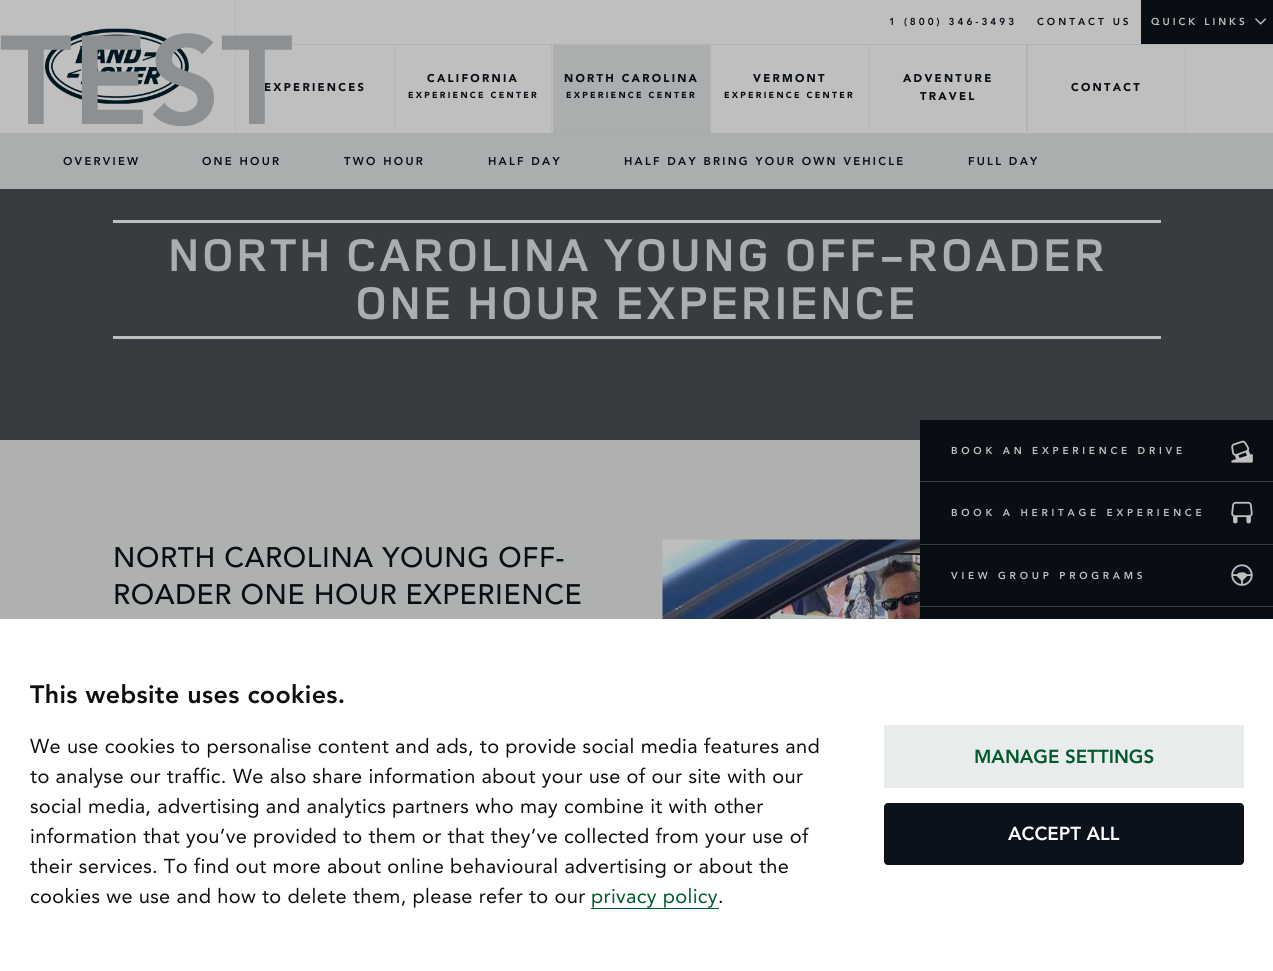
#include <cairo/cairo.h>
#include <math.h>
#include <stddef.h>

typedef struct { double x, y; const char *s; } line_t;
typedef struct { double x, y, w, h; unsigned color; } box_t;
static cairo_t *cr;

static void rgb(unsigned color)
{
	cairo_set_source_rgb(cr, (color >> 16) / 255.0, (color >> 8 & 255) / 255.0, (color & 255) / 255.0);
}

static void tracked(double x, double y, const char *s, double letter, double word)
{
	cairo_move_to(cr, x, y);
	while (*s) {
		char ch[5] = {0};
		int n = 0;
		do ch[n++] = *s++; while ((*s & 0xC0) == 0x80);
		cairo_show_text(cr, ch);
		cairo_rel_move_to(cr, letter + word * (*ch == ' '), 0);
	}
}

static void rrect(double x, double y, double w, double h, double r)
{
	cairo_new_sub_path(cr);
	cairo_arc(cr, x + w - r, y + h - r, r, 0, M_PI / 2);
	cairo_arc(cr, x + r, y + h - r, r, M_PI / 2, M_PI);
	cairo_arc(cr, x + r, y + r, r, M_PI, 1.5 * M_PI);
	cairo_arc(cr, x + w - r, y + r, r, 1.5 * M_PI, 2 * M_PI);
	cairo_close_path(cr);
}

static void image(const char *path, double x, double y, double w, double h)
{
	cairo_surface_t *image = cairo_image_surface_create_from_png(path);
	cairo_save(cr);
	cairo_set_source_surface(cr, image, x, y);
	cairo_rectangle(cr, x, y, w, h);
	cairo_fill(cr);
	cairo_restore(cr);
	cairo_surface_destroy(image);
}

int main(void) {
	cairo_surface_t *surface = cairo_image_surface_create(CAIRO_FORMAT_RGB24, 1273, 971);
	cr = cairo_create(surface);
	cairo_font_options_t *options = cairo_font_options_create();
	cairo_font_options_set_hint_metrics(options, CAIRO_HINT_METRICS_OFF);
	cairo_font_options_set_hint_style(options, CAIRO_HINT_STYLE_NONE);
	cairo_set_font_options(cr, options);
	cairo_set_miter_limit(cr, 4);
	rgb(0x383b3f);
	cairo_paint(cr);
	rgb(0xbfbfbf);
	cairo_rectangle(cr, 0, 0, 1273, 133);
	cairo_fill(cr);
	rgb(0xb3b5b5);
	cairo_rectangle(cr, 235, 0, 1, 133);
	cairo_fill(cr);
	image("img/1.png", 45, 28, 144, 76);
	rgb(0x090e15);
	cairo_rectangle(cr, 1141, 0, 132, 44);
	cairo_fill(cr);
	image("img/2.png", 1255, 18, 12, 7);
	rgb(0xb3b5b5);
	cairo_rectangle(cr, 236, 44, 1037, 1);
	cairo_fill(cr);
	cairo_new_path(cr);
	cairo_move_to(cr, 395, 45);
	cairo_line_to(cr, 395, 132);
	cairo_line_to(cr, 394, 131);
	cairo_line_to(cr, 394, 45);
	cairo_close_path(cr);
	cairo_fill(cr);
	cairo_new_path(cr);
	cairo_move_to(cr, 552, 45);
	cairo_line_to(cr, 552, 132);
	cairo_line_to(cr, 551, 131);
	cairo_line_to(cr, 551, 45);
	cairo_close_path(cr);
	cairo_fill(cr);
	{
		static const box_t items[] = {
			{553, 45, 157, 88, 0xabaeae},
			{710, 45, 1, 88, 0xb3b5b5},
			{553, 131, 158, 1, 0xa7aaaa},
		};
		for (size_t i = 0; i < sizeof items / sizeof *items; i++) {
			rgb(items[i].color);
			cairo_rectangle(cr, items[i].x, items[i].y, items[i].w, items[i].h);
			cairo_fill(cr);
		}
	}
	rgb(0xb3b5b5);
	cairo_new_path(cr);
	cairo_move_to(cr, 870, 45);
	cairo_line_to(cr, 870, 132);
	cairo_line_to(cr, 869, 131);
	cairo_line_to(cr, 869, 45);
	cairo_close_path(cr);
	cairo_fill(cr);
	cairo_new_path(cr);
	cairo_move_to(cr, 1028, 45);
	cairo_line_to(cr, 1028, 132);
	cairo_line_to(cr, 1026, 131);
	cairo_line_to(cr, 1026, 45);
	cairo_close_path(cr);
	cairo_fill(cr);
	cairo_new_path(cr);
	cairo_move_to(cr, 1186, 45);
	cairo_line_to(cr, 1186, 132);
	cairo_line_to(cr, 1185, 131);
	cairo_line_to(cr, 1185, 45);
	cairo_close_path(cr);
	cairo_fill(cr);
	{
		static const box_t items[] = {
			{0, 133, 1273, 56, 0xabaeae},
			{113, 220, 1048, 3, 0xbfbfbf},
			{113, 336, 1048, 3, 0xbfbfbf},
			{0, 440, 920, 179, 0xafb1b1},
		};
		for (size_t i = 0; i < sizeof items / sizeof *items; i++) {
			rgb(items[i].color);
			cairo_rectangle(cr, items[i].x, items[i].y, items[i].w, items[i].h);
			cairo_fill(cr);
		}
	}
	image("img/3.png", 662, 539, 258, 80);
	{
		static const box_t items[] = {
			{920, 420, 291, 124, 0x090e15},
			{920, 481, 291, 1, 0x383b3f},
			{1211, 420, 62, 124, 0x090e15},
			{1211, 481, 62, 1, 0x383b3f},
		};
		for (size_t i = 0; i < sizeof items / sizeof *items; i++) {
			rgb(items[i].color);
			cairo_rectangle(cr, items[i].x, items[i].y, items[i].w, items[i].h);
			cairo_fill(cr);
		}
	}
	image("img/4.png", 1231, 440, 22, 23);
	image("img/5.png", 1231, 501, 22, 23);
	rgb(0x090e15);
	cairo_rectangle(cr, 920, 545, 353, 63);
	cairo_fill(cr);
	rgb(0x383b3f);
	cairo_rectangle(cr, 920, 606, 353, 1);
	cairo_fill(cr);
	image("img/6.png", 1231, 564, 22, 22);
	{
		static const box_t items[] = {
			{920, 608, 353, 11, 0x090e15},
			{0, 619, 1273, 352, 0xffffff},
			{591, 908, 128, 1, 0x005a2b},
			{884, 725, 360, 63, 0xe9ecec},
		};
		for (size_t i = 0; i < sizeof items / sizeof *items; i++) {
			rgb(items[i].color);
			cairo_rectangle(cr, items[i].x, items[i].y, items[i].w, items[i].h);
			cairo_fill(cr);
		}
	}
	rgb(0x0c121c);
	rrect(884, 803, 360, 62, 4);
	cairo_fill(cr);
	cairo_select_font_face(cr, "Avenir Black", CAIRO_FONT_SLANT_NORMAL, CAIRO_FONT_WEIGHT_NORMAL);
	cairo_set_font_size(cr, 10);
	rgb(0x090e15);
	tracked(889, 25, "1 (800) 346-3493", 3, 0);
	tracked(1037, 25, "CONTACT US", 3, 0);
	rgb(0xbfbfbf);
	tracked(1151, 25, "QUICK LINKS", 3, 0);
	cairo_select_font_face(cr, "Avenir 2 Black", CAIRO_FONT_SLANT_NORMAL, CAIRO_FONT_WEIGHT_NORMAL);
	cairo_set_font_size(cr, 11.25);
	rgb(0x090e15);
	tracked(264, 91, "EXPERIENCES", 2.25, 0);
	tracked(427, 82, "CALIFORNIA", 2.25, 0);
	cairo_set_font_size(cr, 8.75);
	tracked(408, 98, "EXPERIENCE CENTER", 2.25, 0);
	cairo_set_font_size(cr, 11.25);
	tracked(564, 82, "NORTH CAROLINA", 2.25, 0);
	cairo_set_font_size(cr, 8.75);
	tracked(566, 98, "EXPERIENCE CENTER", 2.25, 0);
	cairo_set_font_size(cr, 11.25);
	tracked(753, 82, "VERMONT", 2.25, 0);
	cairo_set_font_size(cr, 8.75);
	tracked(724, 98, "EXPERIENCE CENTER", 2.25, 0);
	cairo_set_font_size(cr, 11.25);
	{
		static const line_t items[] = {
			{903, 82, "ADVENTURE"},
			{920, 100, "TRAVEL"},
			{1071, 91, "CONTACT"},
		};
		for (size_t i = 0; i < sizeof items / sizeof *items; i++) {
			tracked(items[i].x, items[i].y, items[i].s, 2.25, 0);
		}
	}
	cairo_select_font_face(cr, "Avenir Black", CAIRO_FONT_SLANT_NORMAL, CAIRO_FONT_WEIGHT_NORMAL);
	{
		static const line_t items[] = {
			{63, 165, "OVERVIEW"},
			{202, 165, "ONE HOUR"},
			{344, 165, "TWO HOUR"},
			{488, 165, "HALF DAY"},
			{624, 165, "HALF DAY BRING YOUR OWN VEHICLE"},
			{968, 165, "FULL DAY"},
		};
		for (size_t i = 0; i < sizeof items / sizeof *items; i++) {
			tracked(items[i].x, items[i].y, items[i].s, 2.25, 0);
		}
	}
	cairo_select_font_face(cr, "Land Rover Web", CAIRO_FONT_SLANT_NORMAL, CAIRO_FONT_WEIGHT_BOLD);
	cairo_set_font_size(cr, 47.5);
	rgb(0xabaeae);
	tracked(168, 271, "NORTH CAROLINA YOUNG OFF-ROADER", 2.4, 0);
	tracked(355, 319, "ONE HOUR EXPERIENCE", 2.4, 0);
	cairo_select_font_face(cr, "avenir Medium", CAIRO_FONT_SLANT_NORMAL, CAIRO_FONT_WEIGHT_NORMAL);
	cairo_set_font_size(cr, 28.1);
	rgb(0x090e15);
	tracked(113, 567, "NORTH CAROLINA YOUNG OFF-", 0.6, 0);
	tracked(113, 604, "ROADER ONE HOUR EXPERIENCE", 0.6, 0);
	cairo_select_font_face(cr, "Avenir Black", CAIRO_FONT_SLANT_NORMAL, CAIRO_FONT_WEIGHT_NORMAL);
	cairo_set_font_size(cr, 10);
	rgb(0xbfbfbf);
	{
		static const line_t items[] = {
			{951, 454, "BOOK AN EXPERIENCE DRIVE"},
			{951, 516, "BOOK A HERITAGE EXPERIENCE"},
			{951, 579, "VIEW GROUP PROGRAMS"},
		};
		for (size_t i = 0; i < sizeof items / sizeof *items; i++) {
			tracked(items[i].x, items[i].y, items[i].s, 3.75, 0);
		}
	}
	cairo_set_font_size(cr, 125);
	rgb(0x8d9092);
	tracked(0, 124, "TEST", 0.35, 0);
	cairo_set_font_size(cr, 25);
	rgb(0x0f0f0f);
	tracked(30, 703, "This website uses cookies.", 0.35, 0);
	cairo_select_font_face(cr, "Avenir", CAIRO_FONT_SLANT_NORMAL, CAIRO_FONT_WEIGHT_NORMAL);
	cairo_set_font_size(cr, 20);
	{
		static const line_t items[] = {
			{30, 753, "We use cookies to personalise content and ads, to provide social media features and"},
			{30, 783, "to analyse our traffic. We also share information about your use of our site with our"},
			{30, 813, "social media, advertising and analytics partners who may combine it with other"},
			{30, 843, "information that you’ve provided to them or that they’ve collected from your use of"},
			{30, 873, "their services. To find out more about online behavioural advertising or about the"},
			{30, 903, "cookies we use and how to delete them, please refer to our"},
		};
		for (size_t i = 0; i < sizeof items / sizeof *items; i++) {
			tracked(items[i].x, items[i].y, items[i].s, 0.35, 0);
		}
	}
	rgb(0x005a2b);
	tracked(591, 903, "privacy policy", 0.35, 0);
	rgb(0x0f0f0f);
	tracked(718, 903, ".", 0.35, 0);
	cairo_select_font_face(cr, "Avenir Black", CAIRO_FONT_SLANT_NORMAL, CAIRO_FONT_WEIGHT_NORMAL);
	cairo_set_font_size(cr, 18.75);
	rgb(0x005a2b);
	cairo_move_to(cr, 974, 763);
	cairo_show_text(cr, "MANAGE SETTINGS");
	rgb(0xffffff);
	cairo_move_to(cr, 1008, 840);
	cairo_show_text(cr, "ACCEPT ALL");
	cairo_surface_write_to_png(surface, "page.png");
	cairo_font_options_destroy(options);
	cairo_destroy(cr);
	cairo_surface_destroy(surface);
	return 0;
}
